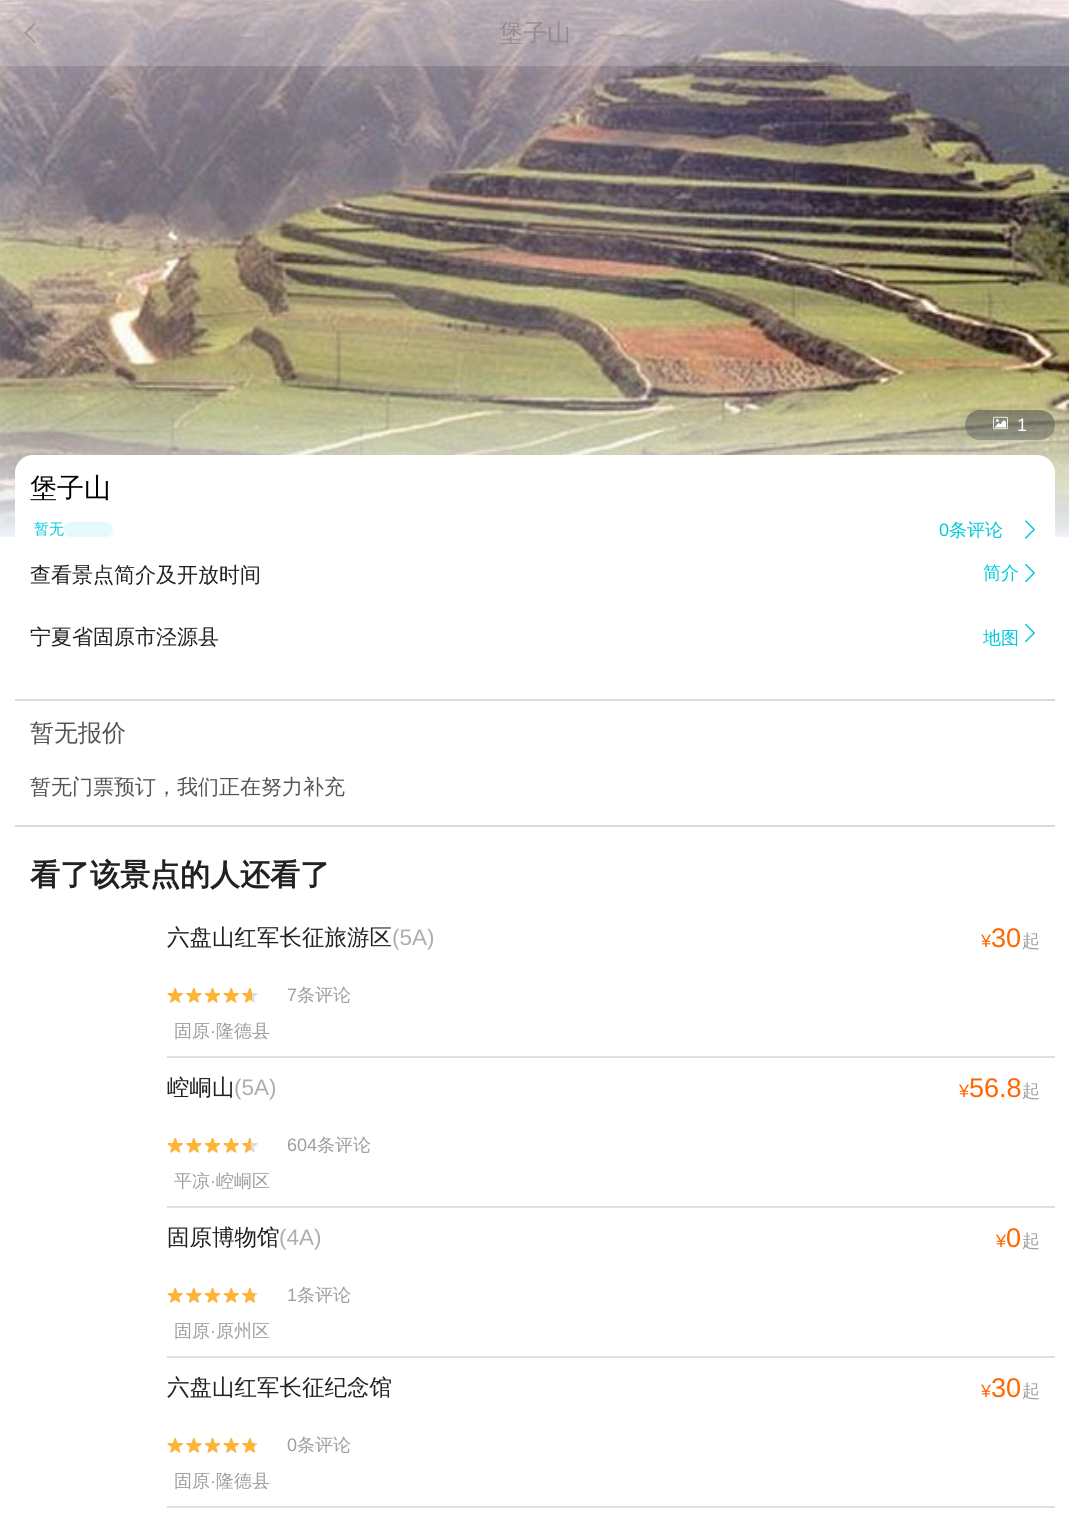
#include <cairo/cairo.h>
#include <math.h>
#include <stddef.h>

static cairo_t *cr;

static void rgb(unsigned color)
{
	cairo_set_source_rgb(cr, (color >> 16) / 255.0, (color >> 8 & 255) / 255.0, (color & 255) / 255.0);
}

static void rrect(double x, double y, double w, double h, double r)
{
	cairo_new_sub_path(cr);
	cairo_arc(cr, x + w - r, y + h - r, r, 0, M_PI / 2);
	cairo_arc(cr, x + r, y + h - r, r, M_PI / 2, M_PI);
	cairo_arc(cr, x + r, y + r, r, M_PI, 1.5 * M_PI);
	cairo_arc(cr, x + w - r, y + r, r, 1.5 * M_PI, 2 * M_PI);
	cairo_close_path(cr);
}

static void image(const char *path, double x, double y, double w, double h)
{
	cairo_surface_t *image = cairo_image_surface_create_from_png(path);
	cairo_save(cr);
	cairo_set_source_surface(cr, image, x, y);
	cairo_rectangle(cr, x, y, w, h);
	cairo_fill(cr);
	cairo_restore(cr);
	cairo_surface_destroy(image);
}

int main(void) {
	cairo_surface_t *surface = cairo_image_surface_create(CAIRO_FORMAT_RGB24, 1069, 1517);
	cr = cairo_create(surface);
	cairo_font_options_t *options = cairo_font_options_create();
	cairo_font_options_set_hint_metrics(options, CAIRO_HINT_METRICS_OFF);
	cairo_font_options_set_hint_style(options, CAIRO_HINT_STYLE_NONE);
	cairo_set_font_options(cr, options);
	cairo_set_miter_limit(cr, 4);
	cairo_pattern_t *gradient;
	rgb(0xffffff);
	cairo_paint(cr);
	image("img/2.png", 0, 0, 1069, 536);
	cairo_set_source_rgba(cr, 1, 1, 1, 0.19);
	cairo_rectangle(cr, 0, 0, 1069, 66);
	cairo_fill(cr);
	image("img/1.png", 24, 23, 12, 20);
	cairo_set_source_rgba(cr, 0, 0, 0, 0.5);
	rrect(965, 410, 90, 30, 15);
	cairo_fill(cr);
	image("img/3.png", 993, 416, 15, 14);
	rgb(0xdadada);
	cairo_rectangle(cr, 15, 699, 1040, 2);
	cairo_fill(cr);
	cairo_rectangle(cr, 15, 825, 1040, 2);
	cairo_fill(cr);
	image("img/6.png", 167, 988, 91, 15);
	image("img/7.png", 167, 988, 85, 15);
	rgb(0xe0e0e0);
	cairo_rectangle(cr, 167, 1056, 888, 2);
	cairo_fill(cr);
	image("img/6.png", 167, 1138, 91, 15);
	image("img/8.png", 167, 1138, 84, 15);
	cairo_rectangle(cr, 167, 1206, 888, 2);
	cairo_fill(cr);
	image("img/6.png", 167, 1288, 91, 15);
	image("img/9.png", 167, 1288, 88, 15);
	cairo_rectangle(cr, 167, 1356, 888, 2);
	cairo_fill(cr);
	image("img/6.png", 167, 1438, 91, 15);
	image("img/9.png", 167, 1438, 88, 15);
	cairo_rectangle(cr, 167, 1506, 888, 2);
	cairo_fill(cr);
	cairo_select_font_face(cr, "WenQuanYi Zen Hei Medium", CAIRO_FONT_SLANT_NORMAL, CAIRO_FONT_WEIGHT_NORMAL);
	cairo_set_font_size(cr, 24);
	rgb(0x948a8e);
	cairo_move_to(cr, 499, 41);
	cairo_show_text(cr, "堡子山");
	cairo_select_font_face(cr, "Liberation Sans", CAIRO_FONT_SLANT_NORMAL, CAIRO_FONT_WEIGHT_NORMAL);
	cairo_set_font_size(cr, 18);
	rgb(0xffffff);
	cairo_move_to(cr, 1017, 431);
	cairo_show_text(cr, "1");
	gradient = cairo_pattern_create_linear(535, 364, 535, 537);
	cairo_pattern_add_color_stop_rgba(gradient, 0, 0.941, 0.957, 0.976, 0);
	cairo_pattern_add_color_stop_rgba(gradient, 1, 0.941, 0.957, 0.976, 1);
	cairo_set_source(cr, gradient);
	cairo_pattern_destroy(gradient);
	cairo_rectangle(cr, 0, 368, 1069, 169);
	cairo_fill(cr);
	rgb(0xffffff);
	rrect(15, 455, 1040, 229, 18);
	cairo_fill(cr);
	cairo_select_font_face(cr, "WenQuanYi Zen Hei Medium", CAIRO_FONT_SLANT_NORMAL, CAIRO_FONT_WEIGHT_NORMAL);
	cairo_set_font_size(cr, 27);
	rgb(0x000000);
	cairo_move_to(cr, 30, 497);
	cairo_show_text(cr, "堡子山");
	cairo_set_font_size(cr, 15);
	rgb(0x00cad8);
	cairo_move_to(cr, 34, 534);
	cairo_show_text(cr, "暂无");
	rgb(0xe6fafc);
	rrect(63, 522, 50, 15, 7.5);
	cairo_fill(cr);
	cairo_select_font_face(cr, "Liberation Sans", CAIRO_FONT_SLANT_NORMAL, CAIRO_FONT_WEIGHT_NORMAL);
	cairo_set_font_size(cr, 18);
	rgb(0x00cad8);
	cairo_move_to(cr, 939, 536);
	cairo_show_text(cr, "0");
	cairo_select_font_face(cr, "WenQuanYi Zen Hei Medium", CAIRO_FONT_SLANT_NORMAL, CAIRO_FONT_WEIGHT_NORMAL);
	cairo_move_to(cr, 949, 536);
	cairo_show_text(cr, "条评论");
	image("img/4.png", 1025, 520, 10, 19);
	cairo_set_font_size(cr, 21);
	rgb(0x212121);
	cairo_move_to(cr, 30, 582);
	cairo_show_text(cr, "查看景点简介及开放时间");
	cairo_set_font_size(cr, 18);
	rgb(0x00cad8);
	cairo_move_to(cr, 983, 579);
	cairo_show_text(cr, "简介");
	image("img/5.png", 1025, 563, 10, 20);
	cairo_set_font_size(cr, 21);
	rgb(0x212121);
	cairo_move_to(cr, 30, 644);
	cairo_show_text(cr, "宁夏省固原市泾源县");
	cairo_set_font_size(cr, 18);
	rgb(0x00cad8);
	cairo_move_to(cr, 983, 644);
	cairo_show_text(cr, "地图");
	image("img/5.png", 1025, 623, 10, 20);
	cairo_set_font_size(cr, 24);
	rgb(0x555555);
	cairo_move_to(cr, 30, 741);
	cairo_show_text(cr, "暂无报价");
	cairo_set_font_size(cr, 21);
	cairo_move_to(cr, 30, 794);
	cairo_show_text(cr, "暂无门票预订，我们正在努力补充");
	cairo_select_font_face(cr, "WenQuanYi Zen Hei", CAIRO_FONT_SLANT_NORMAL, CAIRO_FONT_WEIGHT_BOLD);
	cairo_set_font_size(cr, 30);
	rgb(0x212121);
	cairo_move_to(cr, 30, 885);
	cairo_show_text(cr, "看了该景点的人还看了");
	cairo_select_font_face(cr, "WenQuanYi Zen Hei Medium", CAIRO_FONT_SLANT_NORMAL, CAIRO_FONT_WEIGHT_NORMAL);
	cairo_set_font_size(cr, 22.5);
	cairo_move_to(cr, 167, 945);
	cairo_show_text(cr, "六盘山红军长征旅游区");
	cairo_select_font_face(cr, "Liberation Sans", CAIRO_FONT_SLANT_NORMAL, CAIRO_FONT_WEIGHT_NORMAL);
	rgb(0xadadad);
	cairo_move_to(cr, 392, 945);
	cairo_show_text(cr, "(5A)");
	cairo_set_font_size(cr, 18);
	rgb(0xff6600);
	cairo_move_to(cr, 981, 947);
	cairo_show_text(cr, "¥");
	cairo_set_font_size(cr, 27);
	cairo_move_to(cr, 991, 947);
	cairo_show_text(cr, "30");
	cairo_select_font_face(cr, "WenQuanYi Zen Hei Medium", CAIRO_FONT_SLANT_NORMAL, CAIRO_FONT_WEIGHT_NORMAL);
	cairo_set_font_size(cr, 18);
	rgb(0x9e9e9e);
	cairo_move_to(cr, 1022, 947);
	cairo_show_text(cr, "起");
	cairo_select_font_face(cr, "Liberation Sans", CAIRO_FONT_SLANT_NORMAL, CAIRO_FONT_WEIGHT_NORMAL);
	cairo_move_to(cr, 287, 1001);
	cairo_show_text(cr, "7");
	cairo_select_font_face(cr, "WenQuanYi Zen Hei Medium", CAIRO_FONT_SLANT_NORMAL, CAIRO_FONT_WEIGHT_NORMAL);
	cairo_move_to(cr, 297, 1001);
	cairo_show_text(cr, "条评论");
	cairo_move_to(cr, 174, 1037);
	cairo_show_text(cr, "固原");
	cairo_select_font_face(cr, "Liberation Sans", CAIRO_FONT_SLANT_NORMAL, CAIRO_FONT_WEIGHT_NORMAL);
	cairo_move_to(cr, 210, 1037);
	cairo_show_text(cr, "·");
	cairo_select_font_face(cr, "WenQuanYi Zen Hei Medium", CAIRO_FONT_SLANT_NORMAL, CAIRO_FONT_WEIGHT_NORMAL);
	cairo_move_to(cr, 216, 1037);
	cairo_show_text(cr, "隆德县");
	cairo_set_font_size(cr, 22.5);
	rgb(0x212121);
	cairo_move_to(cr, 167, 1095);
	cairo_show_text(cr, "崆峒山");
	cairo_select_font_face(cr, "Liberation Sans", CAIRO_FONT_SLANT_NORMAL, CAIRO_FONT_WEIGHT_NORMAL);
	rgb(0xadadad);
	cairo_move_to(cr, 234, 1095);
	cairo_show_text(cr, "(5A)");
	cairo_set_font_size(cr, 18);
	rgb(0xff6600);
	cairo_move_to(cr, 959, 1097);
	cairo_show_text(cr, "¥");
	cairo_set_font_size(cr, 27);
	cairo_move_to(cr, 969, 1097);
	cairo_show_text(cr, "56.8");
	cairo_select_font_face(cr, "WenQuanYi Zen Hei Medium", CAIRO_FONT_SLANT_NORMAL, CAIRO_FONT_WEIGHT_NORMAL);
	cairo_set_font_size(cr, 18);
	rgb(0x9e9e9e);
	cairo_move_to(cr, 1022, 1097);
	cairo_show_text(cr, "起");
	cairo_select_font_face(cr, "Liberation Sans", CAIRO_FONT_SLANT_NORMAL, CAIRO_FONT_WEIGHT_NORMAL);
	cairo_move_to(cr, 287, 1151);
	cairo_show_text(cr, "604");
	cairo_select_font_face(cr, "WenQuanYi Zen Hei Medium", CAIRO_FONT_SLANT_NORMAL, CAIRO_FONT_WEIGHT_NORMAL);
	cairo_move_to(cr, 317, 1151);
	cairo_show_text(cr, "条评论");
	cairo_move_to(cr, 174, 1187);
	cairo_show_text(cr, "平凉");
	cairo_select_font_face(cr, "Liberation Sans", CAIRO_FONT_SLANT_NORMAL, CAIRO_FONT_WEIGHT_NORMAL);
	cairo_move_to(cr, 210, 1187);
	cairo_show_text(cr, "·");
	cairo_select_font_face(cr, "WenQuanYi Zen Hei Medium", CAIRO_FONT_SLANT_NORMAL, CAIRO_FONT_WEIGHT_NORMAL);
	cairo_move_to(cr, 216, 1187);
	cairo_show_text(cr, "崆峒区");
	cairo_set_font_size(cr, 22.5);
	rgb(0x212121);
	cairo_move_to(cr, 167, 1245);
	cairo_show_text(cr, "固原博物馆");
	cairo_select_font_face(cr, "Liberation Sans", CAIRO_FONT_SLANT_NORMAL, CAIRO_FONT_WEIGHT_NORMAL);
	rgb(0xadadad);
	cairo_move_to(cr, 279, 1245);
	cairo_show_text(cr, "(4A)");
	cairo_set_font_size(cr, 18);
	rgb(0xff6600);
	cairo_move_to(cr, 996, 1247);
	cairo_show_text(cr, "¥");
	cairo_set_font_size(cr, 27);
	cairo_move_to(cr, 1006, 1247);
	cairo_show_text(cr, "0");
	cairo_select_font_face(cr, "WenQuanYi Zen Hei Medium", CAIRO_FONT_SLANT_NORMAL, CAIRO_FONT_WEIGHT_NORMAL);
	cairo_set_font_size(cr, 18);
	rgb(0x9e9e9e);
	cairo_move_to(cr, 1022, 1247);
	cairo_show_text(cr, "起");
	cairo_select_font_face(cr, "Liberation Sans", CAIRO_FONT_SLANT_NORMAL, CAIRO_FONT_WEIGHT_NORMAL);
	cairo_move_to(cr, 287, 1301);
	cairo_show_text(cr, "1");
	cairo_select_font_face(cr, "WenQuanYi Zen Hei Medium", CAIRO_FONT_SLANT_NORMAL, CAIRO_FONT_WEIGHT_NORMAL);
	cairo_move_to(cr, 297, 1301);
	cairo_show_text(cr, "条评论");
	cairo_move_to(cr, 174, 1337);
	cairo_show_text(cr, "固原");
	cairo_select_font_face(cr, "Liberation Sans", CAIRO_FONT_SLANT_NORMAL, CAIRO_FONT_WEIGHT_NORMAL);
	cairo_move_to(cr, 210, 1337);
	cairo_show_text(cr, "·");
	cairo_select_font_face(cr, "WenQuanYi Zen Hei Medium", CAIRO_FONT_SLANT_NORMAL, CAIRO_FONT_WEIGHT_NORMAL);
	cairo_move_to(cr, 216, 1337);
	cairo_show_text(cr, "原州区");
	cairo_set_font_size(cr, 22.5);
	rgb(0x212121);
	cairo_move_to(cr, 167, 1395);
	cairo_show_text(cr, "六盘山红军长征纪念馆");
	cairo_select_font_face(cr, "Liberation Sans", CAIRO_FONT_SLANT_NORMAL, CAIRO_FONT_WEIGHT_NORMAL);
	cairo_set_font_size(cr, 18);
	rgb(0xff6600);
	cairo_move_to(cr, 981, 1397);
	cairo_show_text(cr, "¥");
	cairo_set_font_size(cr, 27);
	cairo_move_to(cr, 991, 1397);
	cairo_show_text(cr, "30");
	cairo_select_font_face(cr, "WenQuanYi Zen Hei Medium", CAIRO_FONT_SLANT_NORMAL, CAIRO_FONT_WEIGHT_NORMAL);
	cairo_set_font_size(cr, 18);
	rgb(0x9e9e9e);
	cairo_move_to(cr, 1022, 1397);
	cairo_show_text(cr, "起");
	cairo_select_font_face(cr, "Liberation Sans", CAIRO_FONT_SLANT_NORMAL, CAIRO_FONT_WEIGHT_NORMAL);
	cairo_move_to(cr, 287, 1451);
	cairo_show_text(cr, "0");
	cairo_select_font_face(cr, "WenQuanYi Zen Hei Medium", CAIRO_FONT_SLANT_NORMAL, CAIRO_FONT_WEIGHT_NORMAL);
	cairo_move_to(cr, 297, 1451);
	cairo_show_text(cr, "条评论");
	cairo_move_to(cr, 174, 1487);
	cairo_show_text(cr, "固原");
	cairo_select_font_face(cr, "Liberation Sans", CAIRO_FONT_SLANT_NORMAL, CAIRO_FONT_WEIGHT_NORMAL);
	cairo_move_to(cr, 210, 1487);
	cairo_show_text(cr, "·");
	cairo_select_font_face(cr, "WenQuanYi Zen Hei Medium", CAIRO_FONT_SLANT_NORMAL, CAIRO_FONT_WEIGHT_NORMAL);
	cairo_move_to(cr, 216, 1487);
	cairo_show_text(cr, "隆德县");
	cairo_surface_write_to_png(surface, "page.png");
	cairo_font_options_destroy(options);
	cairo_destroy(cr);
	cairo_surface_destroy(surface);
	return 0;
}
